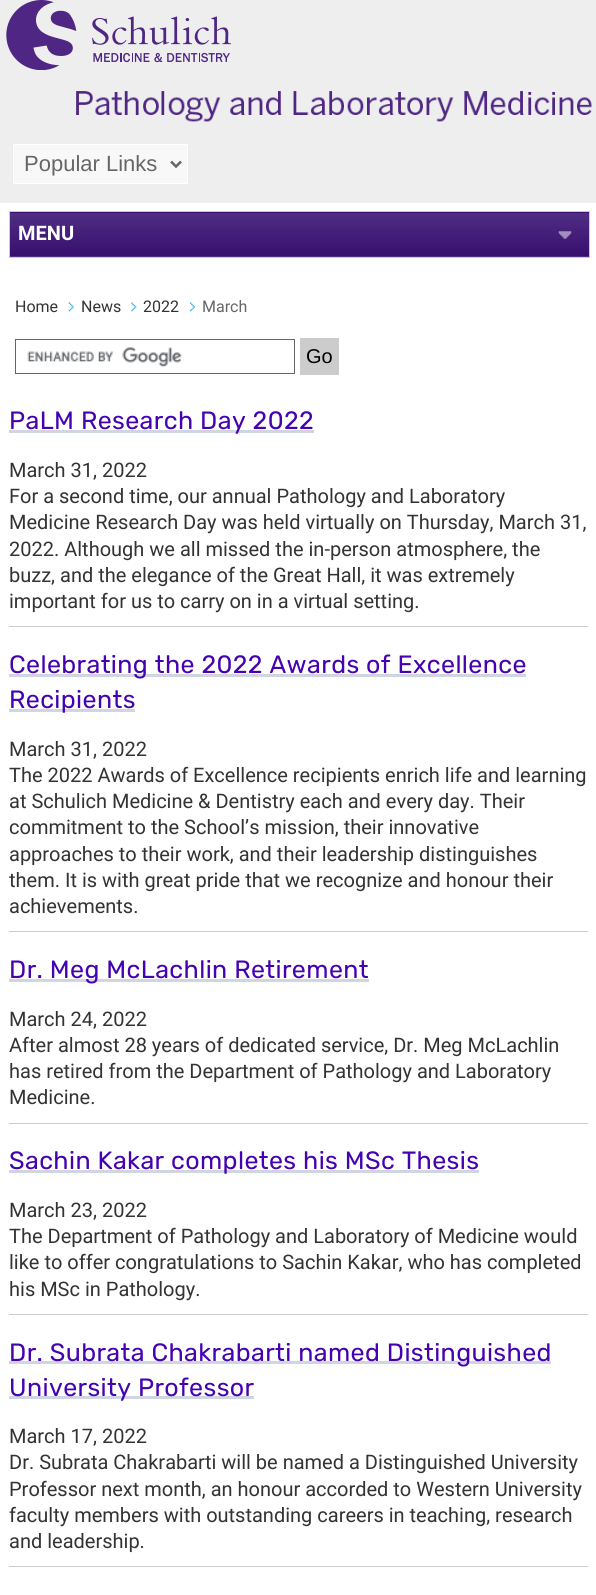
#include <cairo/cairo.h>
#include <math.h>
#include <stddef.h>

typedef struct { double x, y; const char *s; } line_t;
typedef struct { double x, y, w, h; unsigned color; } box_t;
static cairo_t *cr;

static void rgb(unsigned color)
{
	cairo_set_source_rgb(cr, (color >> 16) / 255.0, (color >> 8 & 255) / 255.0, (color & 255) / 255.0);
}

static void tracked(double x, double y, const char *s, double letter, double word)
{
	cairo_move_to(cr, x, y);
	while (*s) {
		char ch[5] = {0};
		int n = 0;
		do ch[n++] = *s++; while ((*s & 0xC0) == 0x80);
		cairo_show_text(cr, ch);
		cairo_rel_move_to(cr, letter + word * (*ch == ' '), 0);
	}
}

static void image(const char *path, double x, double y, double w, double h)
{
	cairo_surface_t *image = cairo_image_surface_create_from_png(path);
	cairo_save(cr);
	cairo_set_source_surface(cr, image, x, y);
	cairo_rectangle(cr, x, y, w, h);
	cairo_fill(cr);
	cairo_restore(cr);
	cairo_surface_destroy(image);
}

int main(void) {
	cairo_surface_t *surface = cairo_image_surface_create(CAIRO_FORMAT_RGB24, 596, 1595);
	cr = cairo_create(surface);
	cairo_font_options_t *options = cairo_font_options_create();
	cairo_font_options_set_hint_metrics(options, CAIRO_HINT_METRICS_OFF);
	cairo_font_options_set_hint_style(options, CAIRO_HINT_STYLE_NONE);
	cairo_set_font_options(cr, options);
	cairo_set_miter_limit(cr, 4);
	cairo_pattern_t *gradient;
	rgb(0xeeeeee);
	cairo_paint(cr);
	image("img/1.png", 6, 0, 225, 70);
	image("img/2.png", 76, 91, 516, 31);
	rgb(0xf8f8f8);
	cairo_rectangle(cr, 13.5, 144.5, 174, 39);
	cairo_fill_preserve(cr);
	rgb(0xffffff);
	cairo_set_line_width(cr, 1);
	cairo_stroke(cr);
	cairo_new_path(cr);
	cairo_move_to(cr, 171, 161.5);
	cairo_line_to(cr, 176, 166.5);
	cairo_line_to(cr, 181, 161.5);
	rgb(0x666666);
	cairo_set_line_width(cr, 2.5);
	cairo_stroke(cr);
	rgb(0xffffff);
	cairo_rectangle(cr, 0, 203, 596, 1392);
	cairo_fill(cr);
	gradient = cairo_pattern_create_linear(10, 169, 10, 213);
	cairo_pattern_add_color_stop_rgba(gradient, 0, 0.31, 0.18, 0.518, 1);
	cairo_pattern_add_color_stop_rgba(gradient, 1, 0.22, 0.055, 0.431, 1);
	cairo_set_source(cr, gradient);
	cairo_pattern_destroy(gradient);
	cairo_rectangle(cr, 9, 212, 581, 1);
	cairo_fill(cr);
	gradient = cairo_pattern_create_linear(10, 213, 10, 256);
	cairo_pattern_add_color_stop_rgba(gradient, 0, 0.31, 0.18, 0.518, 1);
	cairo_pattern_add_color_stop_rgba(gradient, 1, 0.22, 0.055, 0.431, 1);
	cairo_set_source(cr, gradient);
	cairo_pattern_destroy(gradient);
	cairo_rectangle(cr, 10, 213, 579, 43);
	cairo_fill(cr);
	gradient = cairo_pattern_create_linear(10, 256, 10, 300);
	cairo_pattern_add_color_stop_rgba(gradient, 0, 0.31, 0.18, 0.518, 1);
	cairo_pattern_add_color_stop_rgba(gradient, 1, 0.22, 0.055, 0.431, 1);
	cairo_set_source(cr, gradient);
	cairo_pattern_destroy(gradient);
	cairo_rectangle(cr, 9, 256, 581, 1);
	cairo_fill(cr);
	cairo_rectangle(cr, 9.5, 211.5, 580, 46);
	rgb(0xcccccc);
	cairo_set_line_width(cr, 1);
	cairo_stroke(cr);
	image("img/3.png", 558, 231, 14, 8);
	image("img/4.png", 68, 302, 6, 10);
	image("img/5.png", 125, 302, 12, 10);
	image("img/6.png", 189, 302, 7, 10);
	image("img/7.png", 27, 347, 155, 20);
	cairo_rectangle(cr, 15.5, 339.5, 279, 34);
	rgb(0x666666);
	cairo_stroke(cr);
	{
		static const box_t items[] = {
			{300, 338, 39, 37, 0xcccccc},
			{9, 430, 305, 3, 0xcfd6e2},
			{9, 626, 579, 1, 0xcccccc},
			{9, 674, 517, 3, 0xcfd6e2},
			{9, 709, 126, 3, 0xcfd6e2},
			{9, 931, 579, 1, 0xcccccc},
			{9, 979, 360, 3, 0xcfd6e2},
			{9, 1123, 579, 1, 0xcccccc},
			{9, 1170, 470, 3, 0xcfd6e2},
			{9, 1314, 579, 1, 0xcccccc},
			{9, 1361, 542, 3, 0xcfd6e2},
			{9, 1396, 245, 3, 0xcfd6e2},
			{9, 1566, 579, 1, 0xcccccc},
		};
		for (size_t i = 0; i < sizeof items / sizeof *items; i++) {
			rgb(items[i].color);
			cairo_rectangle(cr, items[i].x, items[i].y, items[i].w, items[i].h);
			cairo_fill(cr);
		}
	}
	cairo_select_font_face(cr, "Liberation Sans", CAIRO_FONT_SLANT_NORMAL, CAIRO_FONT_WEIGHT_NORMAL);
	cairo_set_font_size(cr, 22);
	rgb(0x666666);
	cairo_move_to(cr, 24, 171);
	cairo_show_text(cr, "Popular Links");
	cairo_select_font_face(cr, "Roboto", CAIRO_FONT_SLANT_NORMAL, CAIRO_FONT_WEIGHT_BOLD);
	cairo_set_font_size(cr, 20);
	rgb(0xffffff);
	cairo_move_to(cr, 18, 240);
	cairo_show_text(cr, "MENU");
	cairo_select_font_face(cr, "Roboto", CAIRO_FONT_SLANT_NORMAL, CAIRO_FONT_WEIGHT_NORMAL);
	cairo_set_font_size(cr, 16);
	rgb(0x333333);
	{
		static const line_t items[] = {
			{15, 312, "Home"},
			{81, 312, "News"},
			{143, 312, "2022"},
		};
		for (size_t i = 0; i < sizeof items / sizeof *items; i++) {
			cairo_move_to(cr, items[i].x, items[i].y);
			cairo_show_text(cr, items[i].s);
		}
	}
	rgb(0x666666);
	cairo_move_to(cr, 202, 312);
	cairo_show_text(cr, "March");
	cairo_select_font_face(cr, "Liberation Sans", CAIRO_FONT_SLANT_NORMAL, CAIRO_FONT_WEIGHT_NORMAL);
	cairo_set_font_size(cr, 20);
	rgb(0x000000);
	cairo_move_to(cr, 306, 363);
	cairo_show_text(cr, "Go");
	cairo_select_font_face(cr, "Rubik", CAIRO_FONT_SLANT_NORMAL, CAIRO_FONT_WEIGHT_NORMAL);
	cairo_set_font_size(cr, 25);
	rgb(0x4502b1);
	tracked(9, 429, "PaLM Research Day 2022", 0.4, 0);
	cairo_select_font_face(cr, "Roboto", CAIRO_FONT_SLANT_NORMAL, CAIRO_FONT_WEIGHT_NORMAL);
	cairo_set_font_size(cr, 20);
	rgb(0x333333);
	{
		static const line_t items[] = {
			{9, 477, "March 31, 2022"},
			{9, 503, "For a second time, our annual Pathology and Laboratory"},
			{9, 529, "Medicine Research Day was held virtually on Thursday, March 31,"},
			{9, 556, "2022. Although we all missed the in-person atmosphere, the"},
			{9, 582, "buzz, and the elegance of the Great Hall, it was extremely"},
			{9, 608, "important for us to carry on in a virtual setting."},
		};
		for (size_t i = 0; i < sizeof items / sizeof *items; i++) {
			cairo_move_to(cr, items[i].x, items[i].y);
			cairo_show_text(cr, items[i].s);
		}
	}
	cairo_select_font_face(cr, "Rubik", CAIRO_FONT_SLANT_NORMAL, CAIRO_FONT_WEIGHT_NORMAL);
	cairo_set_font_size(cr, 25);
	rgb(0x4502b1);
	tracked(9, 673, "Celebrating the 2022 Awards of Excellence", 0.4, 0);
	tracked(9, 708, "Recipients", 0.4, 0);
	cairo_select_font_face(cr, "Roboto", CAIRO_FONT_SLANT_NORMAL, CAIRO_FONT_WEIGHT_NORMAL);
	cairo_set_font_size(cr, 20);
	rgb(0x333333);
	{
		static const line_t items[] = {
			{9, 756, "March 31, 2022"},
			{9, 782, "The 2022 Awards of Excellence recipients enrich life and learning"},
			{9, 808, "at Schulich Medicine & Dentistry each and every day. Their"},
			{9, 834, "commitment to the School’s mission, their innovative"},
			{9, 861, "approaches to their work, and their leadership distinguishes"},
			{9, 887, "them. It is with great pride that we recognize and honour their"},
			{9, 913, "achievements."},
		};
		for (size_t i = 0; i < sizeof items / sizeof *items; i++) {
			cairo_move_to(cr, items[i].x, items[i].y);
			cairo_show_text(cr, items[i].s);
		}
	}
	cairo_select_font_face(cr, "Rubik", CAIRO_FONT_SLANT_NORMAL, CAIRO_FONT_WEIGHT_NORMAL);
	cairo_set_font_size(cr, 25);
	rgb(0x4502b1);
	tracked(9, 978, "Dr. Meg McLachlin Retirement", 0.4, 0);
	cairo_select_font_face(cr, "Roboto", CAIRO_FONT_SLANT_NORMAL, CAIRO_FONT_WEIGHT_NORMAL);
	cairo_set_font_size(cr, 20);
	rgb(0x333333);
	{
		static const line_t items[] = {
			{9, 1026, "March 24, 2022"},
			{9, 1052, "After almost 28 years of dedicated service, Dr. Meg McLachlin"},
			{9, 1078, "has retired from the Department of Pathology and Laboratory"},
			{9, 1104, "Medicine."},
		};
		for (size_t i = 0; i < sizeof items / sizeof *items; i++) {
			cairo_move_to(cr, items[i].x, items[i].y);
			cairo_show_text(cr, items[i].s);
		}
	}
	cairo_select_font_face(cr, "Rubik", CAIRO_FONT_SLANT_NORMAL, CAIRO_FONT_WEIGHT_NORMAL);
	cairo_set_font_size(cr, 25);
	rgb(0x4502b1);
	tracked(9, 1169, "Sachin Kakar completes his MSc Thesis", 0.4, 0);
	cairo_select_font_face(cr, "Roboto", CAIRO_FONT_SLANT_NORMAL, CAIRO_FONT_WEIGHT_NORMAL);
	cairo_set_font_size(cr, 20);
	rgb(0x333333);
	{
		static const line_t items[] = {
			{9, 1217, "March 23, 2022"},
			{9, 1243, "The Department of Pathology and Laboratory of Medicine would"},
			{9, 1269, "like to offer congratulations to Sachin Kakar, who has completed"},
			{9, 1296, "his MSc in Pathology."},
		};
		for (size_t i = 0; i < sizeof items / sizeof *items; i++) {
			cairo_move_to(cr, items[i].x, items[i].y);
			cairo_show_text(cr, items[i].s);
		}
	}
	cairo_select_font_face(cr, "Rubik", CAIRO_FONT_SLANT_NORMAL, CAIRO_FONT_WEIGHT_NORMAL);
	cairo_set_font_size(cr, 25);
	rgb(0x4502b1);
	tracked(9, 1361, "Dr. Subrata Chakrabarti named Distinguished", 0.4, 0);
	tracked(9, 1396, "University Professor", 0.4, 0);
	cairo_select_font_face(cr, "Roboto", CAIRO_FONT_SLANT_NORMAL, CAIRO_FONT_WEIGHT_NORMAL);
	cairo_set_font_size(cr, 20);
	rgb(0x333333);
	{
		static const line_t items[] = {
			{9, 1443, "March 17, 2022"},
			{9, 1469, "Dr. Subrata Chakrabarti will be named a Distinguished University"},
			{9, 1496, "Professor next month, an honour accorded to Western University"},
			{9, 1522, "faculty members with outstanding careers in teaching, research"},
			{9, 1548, "and leadership."},
		};
		for (size_t i = 0; i < sizeof items / sizeof *items; i++) {
			cairo_move_to(cr, items[i].x, items[i].y);
			cairo_show_text(cr, items[i].s);
		}
	}
	cairo_surface_write_to_png(surface, "page.png");
	cairo_font_options_destroy(options);
	cairo_destroy(cr);
	cairo_surface_destroy(surface);
	return 0;
}
